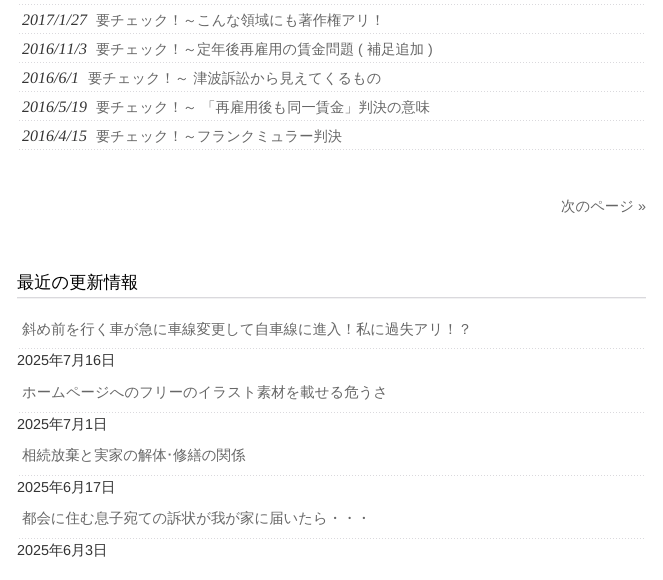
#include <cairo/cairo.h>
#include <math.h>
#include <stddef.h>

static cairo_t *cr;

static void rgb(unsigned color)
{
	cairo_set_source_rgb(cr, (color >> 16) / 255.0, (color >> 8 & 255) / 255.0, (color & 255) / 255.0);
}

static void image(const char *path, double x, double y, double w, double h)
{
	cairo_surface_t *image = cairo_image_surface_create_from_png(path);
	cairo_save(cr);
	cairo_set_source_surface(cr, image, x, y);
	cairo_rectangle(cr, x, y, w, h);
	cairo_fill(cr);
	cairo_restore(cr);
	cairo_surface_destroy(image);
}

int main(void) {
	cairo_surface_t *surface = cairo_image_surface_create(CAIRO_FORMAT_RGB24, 663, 580);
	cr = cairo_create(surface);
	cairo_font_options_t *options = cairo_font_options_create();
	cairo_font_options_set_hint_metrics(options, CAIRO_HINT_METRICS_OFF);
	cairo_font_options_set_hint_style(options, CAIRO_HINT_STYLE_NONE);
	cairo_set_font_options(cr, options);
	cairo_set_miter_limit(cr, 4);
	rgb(0xffffff);
	cairo_paint(cr);
	image("img/1.png", 19, 4, 625, 1);
	image("img/1.png", 19, 33, 625, 1);
	image("img/1.png", 19, 62, 625, 1);
	image("img/1.png", 19, 91, 625, 1);
	image("img/1.png", 19, 120, 625, 1);
	image("img/1.png", 19, 149, 625, 1);
	image("img/2.png", 17, 297, 629, 2);
	image("img/1.png", 19, 348, 625, 1);
	image("img/1.png", 19, 412, 625, 1);
	image("img/1.png", 19, 475, 625, 1);
	image("img/1.png", 19, 538, 625, 1);
	cairo_select_font_face(cr, "Liberation Serif", CAIRO_FONT_SLANT_ITALIC, CAIRO_FONT_WEIGHT_NORMAL);
	cairo_set_font_size(cr, 16);
	rgb(0x333333);
	cairo_move_to(cr, 22, 25);
	cairo_show_text(cr, "2017/1/27");
	cairo_select_font_face(cr, "WenQuanYi Zen Hei Medium", CAIRO_FONT_SLANT_NORMAL, CAIRO_FONT_WEIGHT_NORMAL);
	cairo_set_font_size(cr, 14.25);
	rgb(0x666666);
	cairo_move_to(cr, 96, 25);
	cairo_show_text(cr, "要チェック！～こんな領域にも著作権アリ！");
	cairo_select_font_face(cr, "Liberation Serif", CAIRO_FONT_SLANT_ITALIC, CAIRO_FONT_WEIGHT_NORMAL);
	cairo_set_font_size(cr, 16);
	rgb(0x333333);
	cairo_move_to(cr, 22, 54);
	cairo_show_text(cr, "2016/11/3");
	cairo_select_font_face(cr, "WenQuanYi Zen Hei Medium", CAIRO_FONT_SLANT_NORMAL, CAIRO_FONT_WEIGHT_NORMAL);
	cairo_set_font_size(cr, 14.25);
	rgb(0x666666);
	cairo_move_to(cr, 96, 54);
	cairo_show_text(cr, "要チェック！～定年後再雇用の賃金問題");
	cairo_select_font_face(cr, "Liberation Sans", CAIRO_FONT_SLANT_NORMAL, CAIRO_FONT_WEIGHT_NORMAL);
	cairo_move_to(cr, 358, 54);
	cairo_show_text(cr, "(");
	cairo_select_font_face(cr, "WenQuanYi Zen Hei Medium", CAIRO_FONT_SLANT_NORMAL, CAIRO_FONT_WEIGHT_NORMAL);
	cairo_move_to(cr, 367, 54);
	cairo_show_text(cr, "補足追加");
	cairo_select_font_face(cr, "Liberation Sans", CAIRO_FONT_SLANT_NORMAL, CAIRO_FONT_WEIGHT_NORMAL);
	cairo_move_to(cr, 428, 54);
	cairo_show_text(cr, ")");
	cairo_select_font_face(cr, "Liberation Serif", CAIRO_FONT_SLANT_ITALIC, CAIRO_FONT_WEIGHT_NORMAL);
	cairo_set_font_size(cr, 16);
	rgb(0x333333);
	cairo_move_to(cr, 22, 83);
	cairo_show_text(cr, "2016/6/1");
	cairo_select_font_face(cr, "WenQuanYi Zen Hei Medium", CAIRO_FONT_SLANT_NORMAL, CAIRO_FONT_WEIGHT_NORMAL);
	cairo_set_font_size(cr, 14.25);
	rgb(0x666666);
	cairo_move_to(cr, 88, 83);
	cairo_show_text(cr, "要チェック！～ 津波訴訟から見えてくるもの");
	cairo_select_font_face(cr, "Liberation Serif", CAIRO_FONT_SLANT_ITALIC, CAIRO_FONT_WEIGHT_NORMAL);
	cairo_set_font_size(cr, 16);
	rgb(0x333333);
	cairo_move_to(cr, 22, 112);
	cairo_show_text(cr, "2016/5/19");
	cairo_select_font_face(cr, "WenQuanYi Zen Hei Medium", CAIRO_FONT_SLANT_NORMAL, CAIRO_FONT_WEIGHT_NORMAL);
	cairo_set_font_size(cr, 14.25);
	rgb(0x666666);
	cairo_move_to(cr, 96, 112);
	cairo_show_text(cr, "要チェック！～ 「再雇用後も同一賃金」判決の意味");
	cairo_select_font_face(cr, "Liberation Serif", CAIRO_FONT_SLANT_ITALIC, CAIRO_FONT_WEIGHT_NORMAL);
	cairo_set_font_size(cr, 16);
	rgb(0x333333);
	cairo_move_to(cr, 22, 141);
	cairo_show_text(cr, "2016/4/15");
	cairo_select_font_face(cr, "WenQuanYi Zen Hei Medium", CAIRO_FONT_SLANT_NORMAL, CAIRO_FONT_WEIGHT_NORMAL);
	cairo_set_font_size(cr, 14.25);
	rgb(0x666666);
	cairo_move_to(cr, 96, 141);
	cairo_show_text(cr, "要チェック！～フランクミュラー判決");
	cairo_set_font_size(cr, 14.4);
	cairo_move_to(cr, 561, 211);
	cairo_show_text(cr, "次のページ");
	cairo_select_font_face(cr, "Liberation Sans", CAIRO_FONT_SLANT_NORMAL, CAIRO_FONT_WEIGHT_NORMAL);
	cairo_move_to(cr, 638, 211);
	cairo_show_text(cr, "»");
	cairo_select_font_face(cr, "WenQuanYi Zen Hei Medium", CAIRO_FONT_SLANT_NORMAL, CAIRO_FONT_WEIGHT_NORMAL);
	cairo_set_font_size(cr, 17.25);
	rgb(0x000000);
	cairo_move_to(cr, 17, 288);
	cairo_show_text(cr, "最近の更新情報");
	cairo_set_font_size(cr, 14.4);
	rgb(0x666666);
	cairo_move_to(cr, 22, 334);
	cairo_show_text(cr, "斜め前を行く車が急に車線変更して自車線に進入！私に過失アリ！？");
	cairo_select_font_face(cr, "Liberation Sans", CAIRO_FONT_SLANT_NORMAL, CAIRO_FONT_WEIGHT_NORMAL);
	rgb(0x333333);
	cairo_move_to(cr, 17, 365);
	cairo_show_text(cr, "2025");
	cairo_select_font_face(cr, "WenQuanYi Zen Hei Medium", CAIRO_FONT_SLANT_NORMAL, CAIRO_FONT_WEIGHT_NORMAL);
	cairo_move_to(cr, 49, 365);
	cairo_show_text(cr, "年");
	cairo_select_font_face(cr, "Liberation Sans", CAIRO_FONT_SLANT_NORMAL, CAIRO_FONT_WEIGHT_NORMAL);
	cairo_move_to(cr, 63, 365);
	cairo_show_text(cr, "7");
	cairo_select_font_face(cr, "WenQuanYi Zen Hei Medium", CAIRO_FONT_SLANT_NORMAL, CAIRO_FONT_WEIGHT_NORMAL);
	cairo_move_to(cr, 71, 365);
	cairo_show_text(cr, "月");
	cairo_select_font_face(cr, "Liberation Sans", CAIRO_FONT_SLANT_NORMAL, CAIRO_FONT_WEIGHT_NORMAL);
	cairo_move_to(cr, 85, 365);
	cairo_show_text(cr, "16");
	cairo_select_font_face(cr, "WenQuanYi Zen Hei Medium", CAIRO_FONT_SLANT_NORMAL, CAIRO_FONT_WEIGHT_NORMAL);
	cairo_move_to(cr, 101, 365);
	cairo_show_text(cr, "日");
	rgb(0x666666);
	cairo_move_to(cr, 22, 397);
	cairo_show_text(cr, "ホームページへのフリーのイラスト素材を載せる危うさ");
	cairo_select_font_face(cr, "Liberation Sans", CAIRO_FONT_SLANT_NORMAL, CAIRO_FONT_WEIGHT_NORMAL);
	rgb(0x333333);
	cairo_move_to(cr, 17, 429);
	cairo_show_text(cr, "2025");
	cairo_select_font_face(cr, "WenQuanYi Zen Hei Medium", CAIRO_FONT_SLANT_NORMAL, CAIRO_FONT_WEIGHT_NORMAL);
	cairo_move_to(cr, 49, 429);
	cairo_show_text(cr, "年");
	cairo_select_font_face(cr, "Liberation Sans", CAIRO_FONT_SLANT_NORMAL, CAIRO_FONT_WEIGHT_NORMAL);
	cairo_move_to(cr, 63, 429);
	cairo_show_text(cr, "7");
	cairo_select_font_face(cr, "WenQuanYi Zen Hei Medium", CAIRO_FONT_SLANT_NORMAL, CAIRO_FONT_WEIGHT_NORMAL);
	cairo_move_to(cr, 71, 429);
	cairo_show_text(cr, "月");
	cairo_select_font_face(cr, "Liberation Sans", CAIRO_FONT_SLANT_NORMAL, CAIRO_FONT_WEIGHT_NORMAL);
	cairo_move_to(cr, 85, 429);
	cairo_show_text(cr, "1");
	cairo_select_font_face(cr, "WenQuanYi Zen Hei Medium", CAIRO_FONT_SLANT_NORMAL, CAIRO_FONT_WEIGHT_NORMAL);
	cairo_move_to(cr, 93, 429);
	cairo_show_text(cr, "日");
	rgb(0x666666);
	cairo_move_to(cr, 22, 460);
	cairo_show_text(cr, "相続放棄と実家の解体");
	cairo_select_font_face(cr, "IPAPGothic", CAIRO_FONT_SLANT_NORMAL, CAIRO_FONT_WEIGHT_NORMAL);
	cairo_move_to(cr, 166, 460);
	cairo_show_text(cr, "･");
	cairo_select_font_face(cr, "WenQuanYi Zen Hei Medium", CAIRO_FONT_SLANT_NORMAL, CAIRO_FONT_WEIGHT_NORMAL);
	cairo_move_to(cr, 173, 460);
	cairo_show_text(cr, "修繕の関係");
	cairo_select_font_face(cr, "Liberation Sans", CAIRO_FONT_SLANT_NORMAL, CAIRO_FONT_WEIGHT_NORMAL);
	rgb(0x333333);
	cairo_move_to(cr, 17, 492);
	cairo_show_text(cr, "2025");
	cairo_select_font_face(cr, "WenQuanYi Zen Hei Medium", CAIRO_FONT_SLANT_NORMAL, CAIRO_FONT_WEIGHT_NORMAL);
	cairo_move_to(cr, 49, 492);
	cairo_show_text(cr, "年");
	cairo_select_font_face(cr, "Liberation Sans", CAIRO_FONT_SLANT_NORMAL, CAIRO_FONT_WEIGHT_NORMAL);
	cairo_move_to(cr, 63, 492);
	cairo_show_text(cr, "6");
	cairo_select_font_face(cr, "WenQuanYi Zen Hei Medium", CAIRO_FONT_SLANT_NORMAL, CAIRO_FONT_WEIGHT_NORMAL);
	cairo_move_to(cr, 71, 492);
	cairo_show_text(cr, "月");
	cairo_select_font_face(cr, "Liberation Sans", CAIRO_FONT_SLANT_NORMAL, CAIRO_FONT_WEIGHT_NORMAL);
	cairo_move_to(cr, 85, 492);
	cairo_show_text(cr, "17");
	cairo_select_font_face(cr, "WenQuanYi Zen Hei Medium", CAIRO_FONT_SLANT_NORMAL, CAIRO_FONT_WEIGHT_NORMAL);
	cairo_move_to(cr, 101, 492);
	cairo_show_text(cr, "日");
	rgb(0x666666);
	cairo_move_to(cr, 22, 523);
	cairo_show_text(cr, "都会に住む息子宛ての訴状が我が家に届いたら・・・");
	cairo_select_font_face(cr, "Liberation Sans", CAIRO_FONT_SLANT_NORMAL, CAIRO_FONT_WEIGHT_NORMAL);
	rgb(0x333333);
	cairo_move_to(cr, 17, 555);
	cairo_show_text(cr, "2025");
	cairo_select_font_face(cr, "WenQuanYi Zen Hei Medium", CAIRO_FONT_SLANT_NORMAL, CAIRO_FONT_WEIGHT_NORMAL);
	cairo_move_to(cr, 49, 555);
	cairo_show_text(cr, "年");
	cairo_select_font_face(cr, "Liberation Sans", CAIRO_FONT_SLANT_NORMAL, CAIRO_FONT_WEIGHT_NORMAL);
	cairo_move_to(cr, 63, 555);
	cairo_show_text(cr, "6");
	cairo_select_font_face(cr, "WenQuanYi Zen Hei Medium", CAIRO_FONT_SLANT_NORMAL, CAIRO_FONT_WEIGHT_NORMAL);
	cairo_move_to(cr, 71, 555);
	cairo_show_text(cr, "月");
	cairo_select_font_face(cr, "Liberation Sans", CAIRO_FONT_SLANT_NORMAL, CAIRO_FONT_WEIGHT_NORMAL);
	cairo_move_to(cr, 85, 555);
	cairo_show_text(cr, "3");
	cairo_select_font_face(cr, "WenQuanYi Zen Hei Medium", CAIRO_FONT_SLANT_NORMAL, CAIRO_FONT_WEIGHT_NORMAL);
	cairo_move_to(cr, 93, 555);
	cairo_show_text(cr, "日");
	cairo_surface_write_to_png(surface, "page.png");
	cairo_font_options_destroy(options);
	cairo_destroy(cr);
	cairo_surface_destroy(surface);
	return 0;
}
